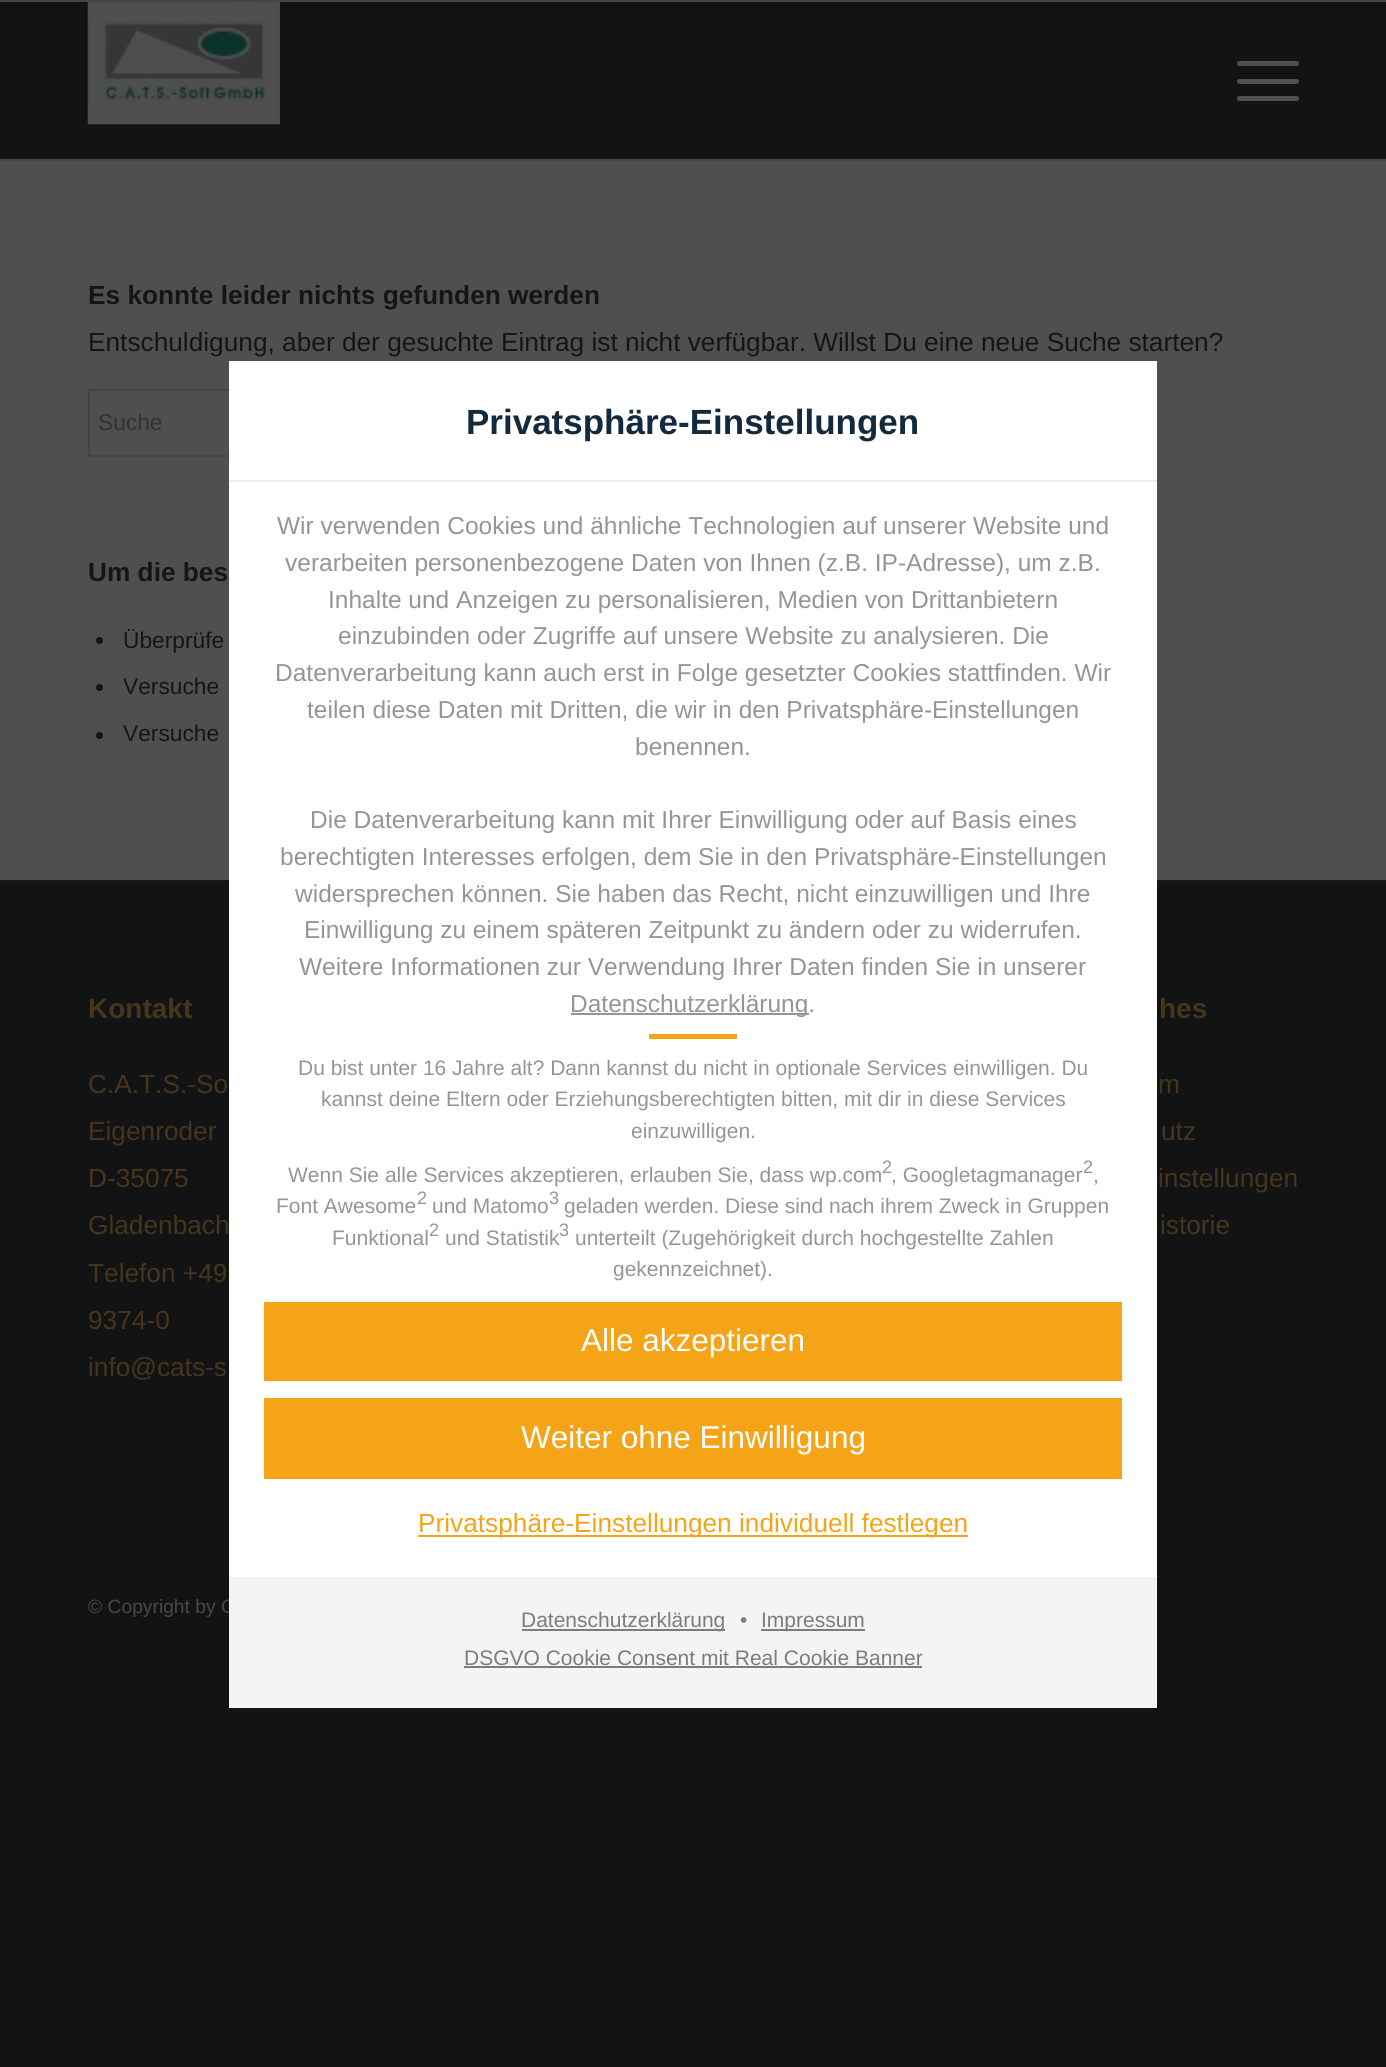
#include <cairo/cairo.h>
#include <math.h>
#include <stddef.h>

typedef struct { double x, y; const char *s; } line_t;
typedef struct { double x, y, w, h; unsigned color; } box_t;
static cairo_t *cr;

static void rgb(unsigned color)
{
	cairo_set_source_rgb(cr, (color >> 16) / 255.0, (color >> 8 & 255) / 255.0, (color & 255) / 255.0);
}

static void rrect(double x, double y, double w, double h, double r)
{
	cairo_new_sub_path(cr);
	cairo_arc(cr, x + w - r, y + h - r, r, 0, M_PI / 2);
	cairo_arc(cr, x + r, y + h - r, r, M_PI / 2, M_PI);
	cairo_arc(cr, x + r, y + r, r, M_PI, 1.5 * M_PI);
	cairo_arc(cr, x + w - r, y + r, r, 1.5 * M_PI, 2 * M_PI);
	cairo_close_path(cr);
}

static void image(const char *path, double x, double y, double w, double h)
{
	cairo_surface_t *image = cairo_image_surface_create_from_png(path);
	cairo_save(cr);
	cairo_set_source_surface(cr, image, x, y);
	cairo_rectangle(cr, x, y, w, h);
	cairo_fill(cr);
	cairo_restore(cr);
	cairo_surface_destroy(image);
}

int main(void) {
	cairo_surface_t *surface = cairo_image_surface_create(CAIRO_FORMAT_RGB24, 1386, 2067);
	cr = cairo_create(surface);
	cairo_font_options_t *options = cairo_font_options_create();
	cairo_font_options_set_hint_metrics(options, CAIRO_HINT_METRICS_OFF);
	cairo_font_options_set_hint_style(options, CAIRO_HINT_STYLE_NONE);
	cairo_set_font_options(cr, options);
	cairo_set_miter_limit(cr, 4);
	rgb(0x121314);
	cairo_paint(cr);
	rgb(0x454545);
	cairo_rectangle(cr, 0, 0, 1386, 2);
	cairo_fill(cr);
	cairo_rectangle(cr, 0, 159, 1386, 2);
	cairo_fill(cr);
	image("img/1.png", 87, 2, 193, 123);
	rgb(0x4f4f4f);
	rrect(1237, 79, 62, 5, 2.5);
	cairo_fill(cr);
	rrect(1237, 61, 62, 5, 2.5);
	cairo_fill(cr);
	rrect(1237, 96, 62, 5, 2.5);
	cairo_fill(cr);
	cairo_rectangle(cr, 0, 161, 1386, 719);
	cairo_fill(cr);
	cairo_rectangle(cr, 89, 390, 523, 66);
	rgb(0x454545);
	cairo_stroke(cr);
	rgb(0x151515);
	cairo_arc(cr, 99.5, 640.5, 3.5, 0, 2 * M_PI);
	cairo_fill(cr);
	cairo_arc(cr, 99.5, 687.5, 3.5, 0, 2 * M_PI);
	cairo_fill(cr);
	cairo_arc(cr, 99.5, 735.5, 3.5, 0, 2 * M_PI);
	cairo_fill(cr);
	{
		static const box_t items[] = {
			{0, 880, 1386, 2, 0x161718},
			{229, 361, 928, 119, 0xffffff},
			{229, 480, 928, 2, 0xebebeb},
			{229, 482, 928, 1095, 0xffffff},
			{571, 1013, 238, 2, 0x939598},
			{649, 1034, 88, 5, 0xf5a418},
			{264, 1302, 858, 79, 0xf5a418},
			{264, 1398, 858, 81, 0xf5a418},
			{418, 1535, 550, 2, 0xf5a418},
		};
		for (size_t i = 0; i < sizeof items / sizeof *items; i++) {
			rgb(items[i].color);
			cairo_rectangle(cr, items[i].x, items[i].y, items[i].w, items[i].h);
			cairo_fill(cr);
		}
	}
	cairo_select_font_face(cr, "Liberation Sans", CAIRO_FONT_SLANT_NORMAL, CAIRO_FONT_WEIGHT_BOLD);
	cairo_set_font_size(cr, 26.25);
	rgb(0x151515);
	cairo_move_to(cr, 88, 304);
	cairo_show_text(cr, "Es konnte leider nichts gefunden werden");
	cairo_select_font_face(cr, "Liberation Sans", CAIRO_FONT_SLANT_NORMAL, CAIRO_FONT_WEIGHT_NORMAL);
	cairo_move_to(cr, 88, 351);
	cairo_show_text(cr, "Entschuldigung, aber der gesuchte Eintrag ist nicht verfügbar. Willst Du eine neue Suche starten?");
	cairo_set_font_size(cr, 22.75);
	rgb(0x323232);
	cairo_move_to(cr, 98, 430);
	cairo_show_text(cr, "Suche");
	cairo_select_font_face(cr, "Liberation Sans", CAIRO_FONT_SLANT_NORMAL, CAIRO_FONT_WEIGHT_BOLD);
	cairo_set_font_size(cr, 26.25);
	rgb(0x151515);
	cairo_move_to(cr, 88, 581);
	cairo_show_text(cr, "Um die bes");
	cairo_select_font_face(cr, "Liberation Sans", CAIRO_FONT_SLANT_NORMAL, CAIRO_FONT_WEIGHT_NORMAL);
	cairo_set_font_size(cr, 22.75);
	{
		static const line_t items[] = {
			{123, 648, "Überprüfe"},
			{123, 694, "Versuche"},
			{123, 741, "Versuche"},
		};
		for (size_t i = 0; i < sizeof items / sizeof *items; i++) {
			cairo_move_to(cr, items[i].x, items[i].y);
			cairo_show_text(cr, items[i].s);
		}
	}
	cairo_select_font_face(cr, "Liberation Sans", CAIRO_FONT_SLANT_NORMAL, CAIRO_FONT_WEIGHT_BOLD);
	cairo_set_font_size(cr, 28);
	rgb(0x46351b);
	cairo_move_to(cr, 88, 1018);
	cairo_show_text(cr, "Kontakt");
	cairo_select_font_face(cr, "Liberation Sans", CAIRO_FONT_SLANT_NORMAL, CAIRO_FONT_WEIGHT_NORMAL);
	cairo_set_font_size(cr, 26.25);
	{
		static const line_t items[] = {
			{88, 1093, "C.A.T.S.-So"},
			{88, 1140, "Eigenroder"},
			{88, 1187, "D-35075"},
			{88, 1234, "Gladenbach"},
			{88, 1282, "Telefon +49"},
			{88, 1329, "9374-0"},
			{88, 1376, "info@cats-s"},
		};
		for (size_t i = 0; i < sizeof items / sizeof *items; i++) {
			cairo_move_to(cr, items[i].x, items[i].y);
			cairo_show_text(cr, items[i].s);
		}
	}
	cairo_select_font_face(cr, "Liberation Sans", CAIRO_FONT_SLANT_NORMAL, CAIRO_FONT_WEIGHT_BOLD);
	cairo_set_font_size(cr, 28);
	cairo_move_to(cr, 1159, 1018);
	cairo_show_text(cr, "hes");
	cairo_select_font_face(cr, "Liberation Sans", CAIRO_FONT_SLANT_NORMAL, CAIRO_FONT_WEIGHT_NORMAL);
	cairo_set_font_size(cr, 26.25);
	{
		static const line_t items[] = {
			{1158, 1093, "m"},
			{1161, 1140, "utz"},
			{1158, 1187, "instellungen"},
			{1160, 1234, "istorie"},
		};
		for (size_t i = 0; i < sizeof items / sizeof *items; i++) {
			cairo_move_to(cr, items[i].x, items[i].y);
			cairo_show_text(cr, items[i].s);
		}
	}
	cairo_set_font_size(cr, 19.25);
	rgb(0x484848);
	cairo_move_to(cr, 88, 1613);
	cairo_show_text(cr, "© Copyright by C");
	cairo_select_font_face(cr, "Liberation Sans", CAIRO_FONT_SLANT_NORMAL, CAIRO_FONT_WEIGHT_BOLD);
	cairo_set_font_size(cr, 35);
	rgb(0x13293e);
	cairo_move_to(cr, 466, 434);
	cairo_show_text(cr, "Privatsphäre-Einstellungen");
	cairo_select_font_face(cr, "Liberation Sans", CAIRO_FONT_SLANT_NORMAL, CAIRO_FONT_WEIGHT_NORMAL);
	cairo_set_font_size(cr, 24.5);
	rgb(0x939598);
	{
		static const line_t items[] = {
			{277, 534, "Wir verwenden Cookies und ähnliche Technologien auf unserer Website und"},
			{285, 571, "verarbeiten personenbezogene Daten von Ihnen (z.B. IP-Adresse), um z.B."},
			{328, 608, "Inhalte und Anzeigen zu personalisieren, Medien von Drittanbietern"},
			{338, 644, "einzubinden oder Zugriffe auf unsere Website zu analysieren. Die"},
			{275, 681, "Datenverarbeitung kann auch erst in Folge gesetzter Cookies stattfinden. Wir"},
			{307, 718, "teilen diese Daten mit Dritten, die wir in den Privatsphäre-Einstellungen"},
			{635, 755, "benennen."},
			{310, 828, "Die Datenverarbeitung kann mit Ihrer Einwilligung oder auf Basis eines"},
			{280, 865, "berechtigten Interesses erfolgen, dem Sie in den Privatsphäre-Einstellungen"},
			{295, 902, "widersprechen können. Sie haben das Recht, nicht einzuwilligen und Ihre"},
			{304, 938, "Einwilligung zu einem späteren Zeitpunkt zu ändern oder zu widerrufen."},
			{299, 975, "Weitere Informationen zur Verwendung Ihrer Daten finden Sie in unserer"},
			{570, 1012, "Datenschutzerklärung."},
		};
		for (size_t i = 0; i < sizeof items / sizeof *items; i++) {
			cairo_move_to(cr, items[i].x, items[i].y);
			cairo_show_text(cr, items[i].s);
		}
	}
	cairo_set_font_size(cr, 21);
	{
		static const line_t items[] = {
			{298, 1075, "Du bist unter 16 Jahre alt? Dann kannst du nicht in optionale Services einwilligen. Du"},
			{321, 1106, "kannst deine Eltern oder Erziehungsberechtigten bitten, mit dir in diese Services"},
			{631, 1138, "einzuwilligen."},
			{288, 1182, "Wenn Sie alle Services akzeptieren, erlauben Sie, dass wp.com"},
		};
		for (size_t i = 0; i < sizeof items / sizeof *items; i++) {
			cairo_move_to(cr, items[i].x, items[i].y);
			cairo_show_text(cr, items[i].s);
		}
	}
	cairo_set_font_size(cr, 18);
	cairo_move_to(cr, 882, 1173);
	cairo_show_text(cr, "2");
	cairo_set_font_size(cr, 21);
	cairo_move_to(cr, 891, 1182);
	cairo_show_text(cr, ", Googletagmanager");
	cairo_set_font_size(cr, 18);
	cairo_move_to(cr, 1083, 1173);
	cairo_show_text(cr, "2");
	cairo_set_font_size(cr, 21);
	cairo_move_to(cr, 1093, 1182);
	cairo_show_text(cr, ",");
	cairo_move_to(cr, 276, 1213);
	cairo_show_text(cr, "Font Awesome");
	cairo_set_font_size(cr, 18);
	cairo_move_to(cr, 417, 1204);
	cairo_show_text(cr, "2");
	cairo_set_font_size(cr, 21);
	cairo_move_to(cr, 432, 1213);
	cairo_show_text(cr, "und Matomo");
	cairo_set_font_size(cr, 18);
	cairo_move_to(cr, 549, 1204);
	cairo_show_text(cr, "3");
	cairo_set_font_size(cr, 21);
	cairo_move_to(cr, 564, 1213);
	cairo_show_text(cr, "geladen werden. Diese sind nach ihrem Zweck in Gruppen");
	cairo_move_to(cr, 332, 1245);
	cairo_show_text(cr, "Funktional");
	cairo_set_font_size(cr, 18);
	cairo_move_to(cr, 429, 1236);
	cairo_show_text(cr, "2");
	cairo_set_font_size(cr, 21);
	cairo_move_to(cr, 445, 1245);
	cairo_show_text(cr, "und Statistik");
	cairo_set_font_size(cr, 18);
	cairo_move_to(cr, 559, 1236);
	cairo_show_text(cr, "3");
	cairo_set_font_size(cr, 21);
	cairo_move_to(cr, 575, 1245);
	cairo_show_text(cr, "unterteilt (Zugehörigkeit durch hochgestellte Zahlen");
	cairo_move_to(cr, 613, 1276);
	cairo_show_text(cr, "gekennzeichnet).");
	cairo_set_font_size(cr, 31.5);
	rgb(0xffffff);
	cairo_move_to(cr, 581, 1351);
	cairo_show_text(cr, "Alle akzeptieren");
	cairo_move_to(cr, 521, 1448);
	cairo_show_text(cr, "Weiter ohne Einwilligung");
	cairo_set_font_size(cr, 26.25);
	rgb(0xf5a418);
	cairo_move_to(cr, 418, 1532);
	cairo_show_text(cr, "Privatsphäre-Einstellungen individuell festlegen");
	rgb(0xf4f4f4);
	cairo_rectangle(cr, 229, 1577, 928, 131);
	cairo_fill(cr);
	rgb(0x7c7c7c);
	cairo_rectangle(cr, 522, 1629, 203, 2);
	cairo_fill(cr);
	cairo_set_font_size(cr, 21);
	cairo_move_to(cr, 521, 1627);
	cairo_show_text(cr, "Datenschutzerklärung");
	cairo_move_to(cr, 740, 1627);
	cairo_show_text(cr, "•");
	cairo_rectangle(cr, 761, 1629, 104, 2);
	cairo_fill(cr);
	cairo_move_to(cr, 761, 1627);
	cairo_show_text(cr, "Impressum");
	cairo_move_to(cr, 464, 1665);
	cairo_show_text(cr, "DSGVO Cookie Consent mit Real Cookie Banner");
	cairo_rectangle(cr, 464, 1666, 458, 2);
	cairo_fill(cr);
	cairo_surface_write_to_png(surface, "page.png");
	cairo_font_options_destroy(options);
	cairo_destroy(cr);
	cairo_surface_destroy(surface);
	return 0;
}
